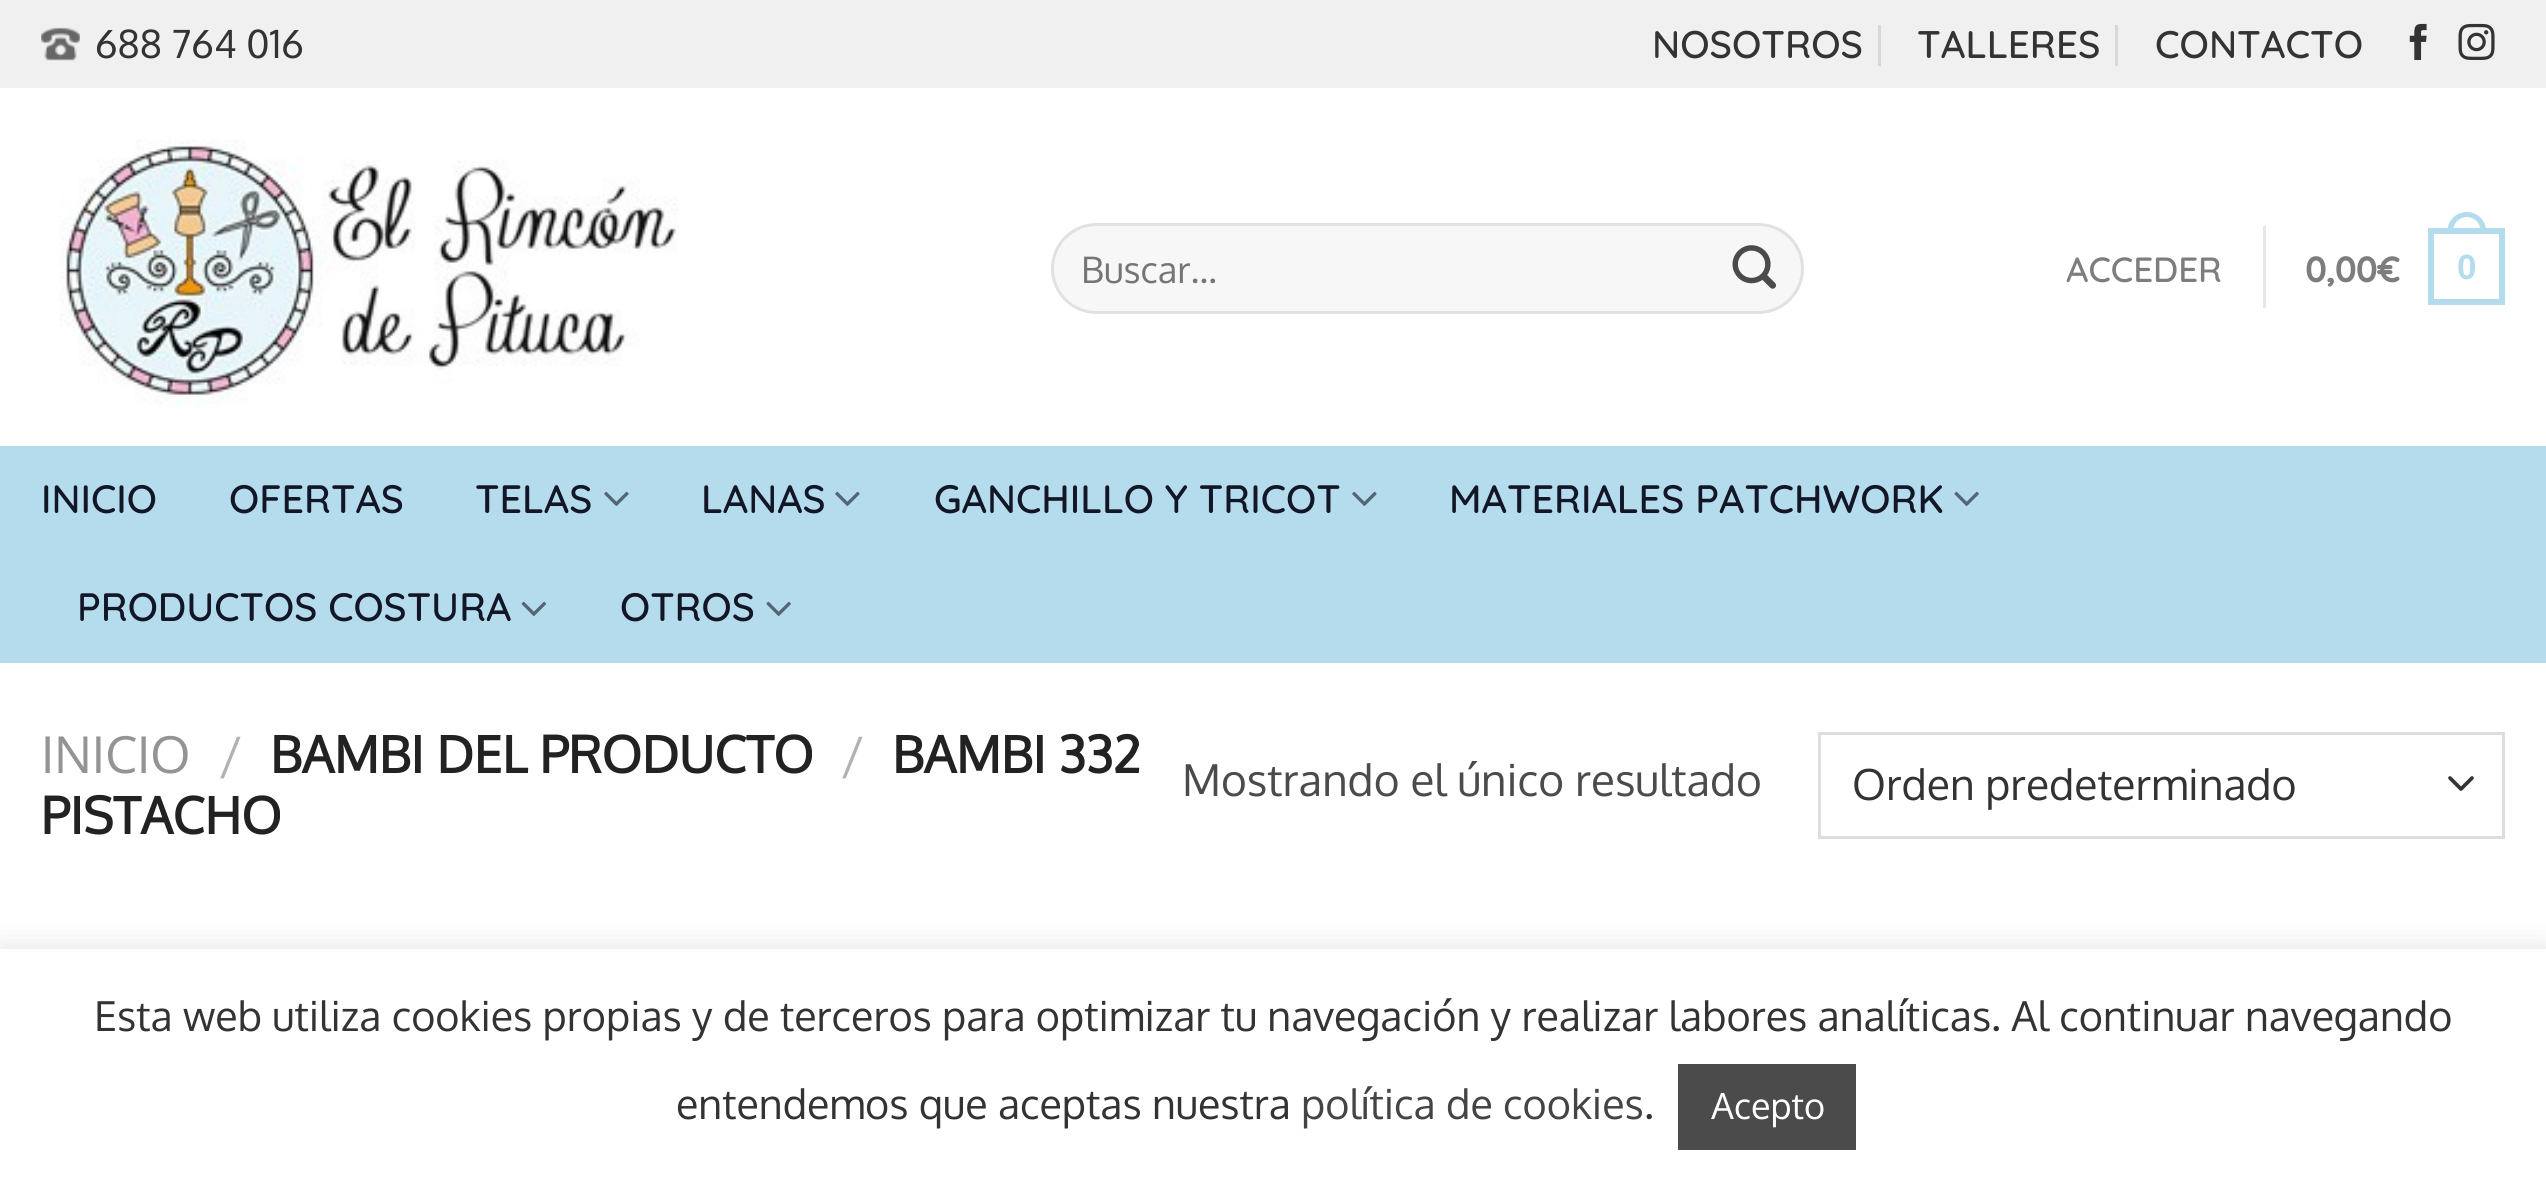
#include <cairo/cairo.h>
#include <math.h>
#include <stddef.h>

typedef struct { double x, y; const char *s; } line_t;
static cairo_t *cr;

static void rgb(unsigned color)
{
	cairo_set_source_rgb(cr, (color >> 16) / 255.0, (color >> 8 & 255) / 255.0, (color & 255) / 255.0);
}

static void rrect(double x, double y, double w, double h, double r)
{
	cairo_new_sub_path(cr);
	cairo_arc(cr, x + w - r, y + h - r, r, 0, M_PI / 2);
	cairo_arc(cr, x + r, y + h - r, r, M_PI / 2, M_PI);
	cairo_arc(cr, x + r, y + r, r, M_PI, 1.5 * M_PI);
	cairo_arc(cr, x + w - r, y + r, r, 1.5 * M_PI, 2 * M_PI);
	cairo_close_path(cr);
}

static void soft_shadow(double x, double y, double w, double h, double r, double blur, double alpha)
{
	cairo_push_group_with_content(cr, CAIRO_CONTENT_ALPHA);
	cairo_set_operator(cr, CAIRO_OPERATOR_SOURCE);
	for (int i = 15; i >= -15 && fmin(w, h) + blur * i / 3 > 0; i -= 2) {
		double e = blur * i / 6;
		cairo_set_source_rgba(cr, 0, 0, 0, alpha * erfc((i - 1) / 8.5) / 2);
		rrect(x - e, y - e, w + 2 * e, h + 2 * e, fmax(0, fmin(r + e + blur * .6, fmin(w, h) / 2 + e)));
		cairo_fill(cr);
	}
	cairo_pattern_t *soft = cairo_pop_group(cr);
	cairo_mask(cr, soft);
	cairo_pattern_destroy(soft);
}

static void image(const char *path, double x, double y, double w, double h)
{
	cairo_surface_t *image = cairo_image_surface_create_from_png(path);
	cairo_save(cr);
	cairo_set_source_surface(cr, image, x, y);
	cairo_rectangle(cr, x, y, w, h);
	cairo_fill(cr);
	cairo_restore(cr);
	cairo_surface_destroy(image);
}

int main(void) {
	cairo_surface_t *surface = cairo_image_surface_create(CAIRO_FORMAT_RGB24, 2546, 1194);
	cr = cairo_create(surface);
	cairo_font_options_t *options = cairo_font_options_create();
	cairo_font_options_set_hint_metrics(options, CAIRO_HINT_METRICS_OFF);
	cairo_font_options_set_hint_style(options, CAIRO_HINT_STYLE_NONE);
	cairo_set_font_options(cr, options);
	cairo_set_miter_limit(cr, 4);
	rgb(0xffffff);
	cairo_paint(cr);
	rgb(0xf0f0f0);
	cairo_rectangle(cr, 0, 0, 2546, 88);
	cairo_fill(cr);
	image("img/1.png", 41, 27, 39, 34);
	rgb(0xd8d8d8);
	cairo_rectangle(cr, 1878, 25, 3, 41);
	cairo_fill(cr);
	cairo_rectangle(cr, 2115, 25, 3, 41);
	cairo_fill(cr);
	image("img/2.png", 2409, 23, 18, 37);
	image("img/3.png", 2458, 23, 37, 37);
	image("img/4.png", 59, 139, 619, 269);
	rgb(0xf7f7f7);
	rrect(1051, 223, 753, 91, 45.5);
	cairo_fill(cr);
	rrect(1052.5, 224.5, 750, 88, 44);
	cairo_set_source_rgba(cr, 0, 0, 0, 0.09);
	cairo_set_line_width(cr, 3);
	cairo_stroke(cr);
	image("img/5.png", 1732, 245, 44, 44);
	rgb(0xe6e6e6);
	cairo_rectangle(cr, 2263, 226, 3, 82);
	cairo_fill(cr);
	cairo_rectangle(cr, 2431, 231, 71, 71);
	rgb(0xb4dced);
	cairo_set_line_width(cr, 6);
	cairo_stroke(cr);
	cairo_set_fill_rule(cr, CAIRO_FILL_RULE_EVEN_ODD);
	cairo_new_path(cr);
	cairo_move_to(cr, 2467, 212);
	cairo_curve_to(cr, 2477.5, 212, 2486, 220.5, 2486, 231);
	cairo_line_to(cr, 2486, 234);
	cairo_line_to(cr, 2447.5, 234);
	cairo_line_to(cr, 2447.5, 231);
	cairo_curve_to(cr, 2447.5, 220.5, 2456, 212, 2467, 212);
	cairo_close_path(cr);
	cairo_move_to(cr, 2467, 217);
	cairo_curve_to(cr, 2474.5, 217, 2480.5, 223.5, 2480.5, 231);
	cairo_line_to(cr, 2480.5, 234);
	cairo_line_to(cr, 2453, 234);
	cairo_line_to(cr, 2453, 231);
	cairo_curve_to(cr, 2453, 223.5, 2459, 217, 2467, 217);
	cairo_close_path(cr);
	cairo_fill(cr);
	cairo_rectangle(cr, 0, 446, 2546, 217);
	cairo_fill(cr);
	image("img/6.png", 604, 491, 25, 15);
	image("img/6.png", 835, 491, 25, 15);
	image("img/6.png", 1352, 491, 25, 15);
	image("img/7.png", 1954, 491, 25, 15);
	image("img/8.png", 521, 601, 26, 15);
	image("img/7.png", 766, 601, 25, 15);
	cairo_new_path(cr);
	cairo_move_to(cr, 2450, 778);
	cairo_line_to(cr, 2461, 789);
	cairo_line_to(cr, 2472, 778);
	rgb(0x333333);
	cairo_set_line_width(cr, 3.7);
	cairo_set_line_cap(cr, CAIRO_LINE_CAP_ROUND);
	cairo_set_line_join(cr, CAIRO_LINE_JOIN_ROUND);
	cairo_stroke(cr);
	cairo_rectangle(cr, 1819.5, 733.5, 684, 104);
	rgb(0xdddddd);
	cairo_set_line_width(cr, 3);
	cairo_set_line_cap(cr, CAIRO_LINE_CAP_BUTT);
	cairo_set_line_join(cr, CAIRO_LINE_JOIN_MITER);
	cairo_stroke(cr);
	rgb(0xacabab);
	soft_shadow(0, 946, 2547, 248, 0, 14, 0.3);
	rgb(0xffffff);
	cairo_rectangle(cr, 0, 949, 2546, 245);
	cairo_fill(cr);
	rgb(0x4b4b4b);
	cairo_rectangle(cr, 1678, 1064, 178, 86);
	cairo_fill(cr);
	cairo_select_font_face(cr, "Oxygen", CAIRO_FONT_SLANT_NORMAL, CAIRO_FONT_WEIGHT_NORMAL);
	cairo_set_font_size(cr, 38.5);
	rgb(0x333333);
	cairo_move_to(cr, 95, 58);
	cairo_show_text(cr, "688 764 016");
	cairo_select_font_face(cr, "Quicksand Medium", CAIRO_FONT_SLANT_NORMAL, CAIRO_FONT_WEIGHT_NORMAL);
	{
		static const line_t items[] = {
			{1652, 58, "NOSOTROS"},
			{1917, 58, "TALLERES"},
			{2155, 58, "CONTACTO"},
		};
		for (size_t i = 0; i < sizeof items / sizeof *items; i++) {
			cairo_move_to(cr, items[i].x, items[i].y);
			cairo_show_text(cr, items[i].s);
		}
	}
	cairo_select_font_face(cr, "Oxygen", CAIRO_FONT_SLANT_NORMAL, CAIRO_FONT_WEIGHT_NORMAL);
	cairo_set_font_size(cr, 36.5);
	rgb(0x757575);
	cairo_move_to(cr, 1081, 283);
	cairo_show_text(cr, "Buscar…");
	cairo_select_font_face(cr, "Quicksand Medium", CAIRO_FONT_SLANT_NORMAL, CAIRO_FONT_WEIGHT_NORMAL);
	cairo_set_font_size(cr, 35);
	rgb(0x7d7d7d);
	cairo_move_to(cr, 2066, 282);
	cairo_show_text(cr, "ACCEDER");
	cairo_select_font_face(cr, "Quicksand", CAIRO_FONT_SLANT_NORMAL, CAIRO_FONT_WEIGHT_BOLD);
	cairo_move_to(cr, 2305, 282);
	cairo_show_text(cr, "0,00€");
	cairo_select_font_face(cr, "Liberation Sans", CAIRO_FONT_SLANT_NORMAL, CAIRO_FONT_WEIGHT_BOLD);
	rgb(0xb4dced);
	cairo_move_to(cr, 2457, 279);
	cairo_show_text(cr, "0");
	cairo_select_font_face(cr, "Quicksand Medium", CAIRO_FONT_SLANT_NORMAL, CAIRO_FONT_WEIGHT_NORMAL);
	cairo_set_font_size(cr, 39.6);
	rgb(0x131626);
	{
		static const line_t items[] = {
			{41, 513, "INICIO"},
			{229, 513, "OFERTAS"},
			{475, 513, "TELAS"},
			{701, 513, "LANAS"},
			{934, 513, "GANCHILLO Y TRICOT"},
			{1449, 513, "MATERIALES PATCHWORK"},
			{77, 621, "PRODUCTOS COSTURA"},
			{620, 621, "OTROS"},
		};
		for (size_t i = 0; i < sizeof items / sizeof *items; i++) {
			cairo_move_to(cr, items[i].x, items[i].y);
			cairo_show_text(cr, items[i].s);
		}
	}
	cairo_select_font_face(cr, "Oxygen", CAIRO_FONT_SLANT_NORMAL, CAIRO_FONT_WEIGHT_NORMAL);
	cairo_set_font_size(cr, 50.6);
	rgb(0x949494);
	cairo_move_to(cr, 41, 773);
	cairo_show_text(cr, "INICIO");
	rgb(0xb2b2b2);
	cairo_move_to(cr, 219, 773);
	cairo_show_text(cr, "/");
	cairo_select_font_face(cr, "Oxygen", CAIRO_FONT_SLANT_NORMAL, CAIRO_FONT_WEIGHT_BOLD);
	rgb(0x222222);
	cairo_move_to(cr, 270, 773);
	cairo_show_text(cr, "BAMBI DEL PRODUCTO");
	cairo_select_font_face(cr, "Oxygen", CAIRO_FONT_SLANT_NORMAL, CAIRO_FONT_WEIGHT_NORMAL);
	rgb(0xb2b2b2);
	cairo_move_to(cr, 841, 773);
	cairo_show_text(cr, "/");
	cairo_select_font_face(cr, "Oxygen", CAIRO_FONT_SLANT_NORMAL, CAIRO_FONT_WEIGHT_BOLD);
	rgb(0x222222);
	cairo_move_to(cr, 892, 773);
	cairo_show_text(cr, "BAMBI 332");
	cairo_move_to(cr, 41, 834);
	cairo_show_text(cr, "PISTACHO");
	cairo_select_font_face(cr, "Oxygen", CAIRO_FONT_SLANT_NORMAL, CAIRO_FONT_WEIGHT_NORMAL);
	cairo_set_font_size(cr, 44);
	rgb(0x4b4b4b);
	cairo_move_to(cr, 1182, 796);
	cairo_show_text(cr, "Mostrando el único resultado");
	cairo_set_font_size(cr, 42.75);
	rgb(0x333333);
	cairo_move_to(cr, 1852, 800);
	cairo_show_text(cr, "Orden predeterminado");
	cairo_set_font_size(cr, 41.25);
	cairo_move_to(cr, 94, 1031);
	cairo_show_text(cr, "Esta web utiliza cookies propias y de terceros para optimizar tu navegación y realizar labores analíticas. Al continuar navegando");
	cairo_move_to(cr, 676, 1119);
	cairo_show_text(cr, "entendemos que aceptas nuestra");
	rgb(0x444444);
	cairo_move_to(cr, 1301, 1119);
	cairo_show_text(cr, "política de cookies");
	rgb(0x333333);
	cairo_move_to(cr, 1644, 1119);
	cairo_show_text(cr, ".");
	cairo_set_font_size(cr, 36);
	rgb(0xffffff);
	cairo_move_to(cr, 1711, 1119);
	cairo_show_text(cr, "Acepto");
	cairo_surface_write_to_png(surface, "page.png");
	cairo_font_options_destroy(options);
	cairo_destroy(cr);
	cairo_surface_destroy(surface);
	return 0;
}
